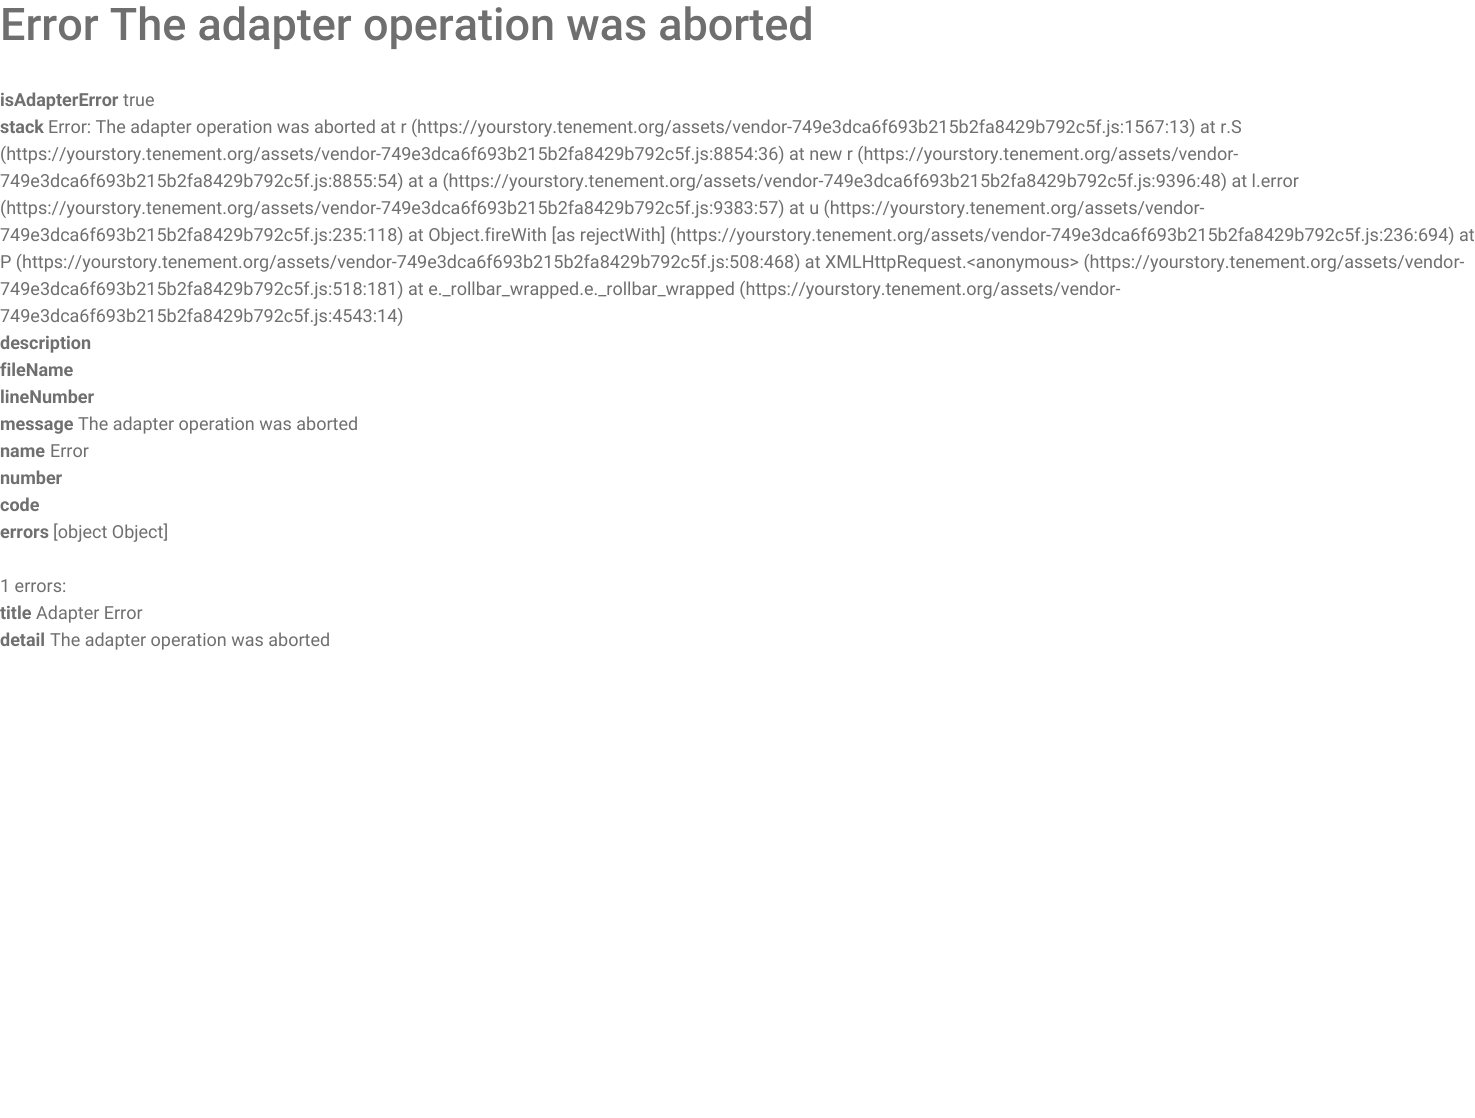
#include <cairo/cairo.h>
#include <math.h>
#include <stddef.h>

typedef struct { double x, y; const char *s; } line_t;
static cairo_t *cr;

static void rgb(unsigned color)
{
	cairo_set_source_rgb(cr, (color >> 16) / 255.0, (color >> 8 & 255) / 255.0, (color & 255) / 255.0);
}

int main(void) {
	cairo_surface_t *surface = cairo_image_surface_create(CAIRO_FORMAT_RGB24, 1475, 1118);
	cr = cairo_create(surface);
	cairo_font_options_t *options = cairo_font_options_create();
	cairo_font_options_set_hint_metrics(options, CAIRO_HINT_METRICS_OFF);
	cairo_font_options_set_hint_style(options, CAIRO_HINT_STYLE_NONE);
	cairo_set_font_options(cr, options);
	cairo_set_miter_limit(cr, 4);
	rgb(0xffffff);
	cairo_paint(cr);
	cairo_select_font_face(cr, "Roboto Medium", CAIRO_FONT_SLANT_NORMAL, CAIRO_FONT_WEIGHT_NORMAL);
	cairo_set_font_size(cr, 45);
	rgb(0x6f6f6f);
	cairo_move_to(cr, 0, 40);
	cairo_show_text(cr, "Error The adapter operation was aborted");
	cairo_select_font_face(cr, "Roboto", CAIRO_FONT_SLANT_NORMAL, CAIRO_FONT_WEIGHT_BOLD);
	cairo_set_font_size(cr, 18);
	cairo_move_to(cr, 0, 106);
	cairo_show_text(cr, "isAdapterError");
	cairo_select_font_face(cr, "Roboto", CAIRO_FONT_SLANT_NORMAL, CAIRO_FONT_WEIGHT_NORMAL);
	cairo_move_to(cr, 123, 106);
	cairo_show_text(cr, "true");
	cairo_select_font_face(cr, "Roboto", CAIRO_FONT_SLANT_NORMAL, CAIRO_FONT_WEIGHT_BOLD);
	cairo_move_to(cr, 0, 133);
	cairo_show_text(cr, "stack");
	cairo_select_font_face(cr, "Roboto", CAIRO_FONT_SLANT_NORMAL, CAIRO_FONT_WEIGHT_NORMAL);
	{
		static const line_t items[] = {
			{48, 133, "Error: The adapter operation was aborted at r (https://yourstory.tenement.org/assets/vendor-749e3dca6f693b215b2fa8429b792c5f.js:1567:13) at r.S"},
			{0, 160, "(https://yourstory.tenement.org/assets/vendor-749e3dca6f693b215b2fa8429b792c5f.js:8854:36) at new r (https://yourstory.tenement.org/assets/vendor-"},
			{0, 187, "749e3dca6f693b215b2fa8429b792c5f.js:8855:54) at a (https://yourstory.tenement.org/assets/vendor-749e3dca6f693b215b2fa8429b792c5f.js:9396:48) at l.error"},
			{0, 214, "(https://yourstory.tenement.org/assets/vendor-749e3dca6f693b215b2fa8429b792c5f.js:9383:57) at u (https://yourstory.tenement.org/assets/vendor-"},
			{0, 241, "749e3dca6f693b215b2fa8429b792c5f.js:235:118) at Object.fireWith [as rejectWith] (https://yourstory.tenement.org/assets/vendor-749e3dca6f693b215b2fa8429b792c5f.js:236:694) at"},
			{0, 268, "P (https://yourstory.tenement.org/assets/vendor-749e3dca6f693b215b2fa8429b792c5f.js:508:468) at XMLHttpRequest.<anonymous> (https://yourstory.tenement.org/assets/vendor-"},
			{0, 295, "749e3dca6f693b215b2fa8429b792c5f.js:518:181) at e._rollbar_wrapped.e._rollbar_wrapped (https://yourstory.tenement.org/assets/vendor-"},
			{0, 322, "749e3dca6f693b215b2fa8429b792c5f.js:4543:14)"},
		};
		for (size_t i = 0; i < sizeof items / sizeof *items; i++) {
			cairo_move_to(cr, items[i].x, items[i].y);
			cairo_show_text(cr, items[i].s);
		}
	}
	cairo_select_font_face(cr, "Roboto", CAIRO_FONT_SLANT_NORMAL, CAIRO_FONT_WEIGHT_BOLD);
	{
		static const line_t items[] = {
			{0, 349, "description"},
			{0, 376, "fileName"},
			{0, 403, "lineNumber"},
			{0, 430, "message"},
		};
		for (size_t i = 0; i < sizeof items / sizeof *items; i++) {
			cairo_move_to(cr, items[i].x, items[i].y);
			cairo_show_text(cr, items[i].s);
		}
	}
	cairo_select_font_face(cr, "Roboto", CAIRO_FONT_SLANT_NORMAL, CAIRO_FONT_WEIGHT_NORMAL);
	cairo_move_to(cr, 78, 430);
	cairo_show_text(cr, "The adapter operation was aborted");
	cairo_select_font_face(cr, "Roboto", CAIRO_FONT_SLANT_NORMAL, CAIRO_FONT_WEIGHT_BOLD);
	cairo_move_to(cr, 0, 457);
	cairo_show_text(cr, "name");
	cairo_select_font_face(cr, "Roboto", CAIRO_FONT_SLANT_NORMAL, CAIRO_FONT_WEIGHT_NORMAL);
	cairo_move_to(cr, 50, 457);
	cairo_show_text(cr, "Error");
	cairo_select_font_face(cr, "Roboto", CAIRO_FONT_SLANT_NORMAL, CAIRO_FONT_WEIGHT_BOLD);
	{
		static const line_t items[] = {
			{0, 484, "number"},
			{0, 511, "code"},
			{0, 538, "errors"},
		};
		for (size_t i = 0; i < sizeof items / sizeof *items; i++) {
			cairo_move_to(cr, items[i].x, items[i].y);
			cairo_show_text(cr, items[i].s);
		}
	}
	cairo_select_font_face(cr, "Roboto", CAIRO_FONT_SLANT_NORMAL, CAIRO_FONT_WEIGHT_NORMAL);
	cairo_move_to(cr, 53, 538);
	cairo_show_text(cr, "[object Object]");
	cairo_move_to(cr, 0, 592);
	cairo_show_text(cr, "1 errors:");
	cairo_select_font_face(cr, "Roboto", CAIRO_FONT_SLANT_NORMAL, CAIRO_FONT_WEIGHT_BOLD);
	cairo_move_to(cr, 0, 619);
	cairo_show_text(cr, "title");
	cairo_select_font_face(cr, "Roboto", CAIRO_FONT_SLANT_NORMAL, CAIRO_FONT_WEIGHT_NORMAL);
	cairo_move_to(cr, 36, 619);
	cairo_show_text(cr, "Adapter Error");
	cairo_select_font_face(cr, "Roboto", CAIRO_FONT_SLANT_NORMAL, CAIRO_FONT_WEIGHT_BOLD);
	cairo_move_to(cr, 0, 646);
	cairo_show_text(cr, "detail");
	cairo_select_font_face(cr, "Roboto", CAIRO_FONT_SLANT_NORMAL, CAIRO_FONT_WEIGHT_NORMAL);
	cairo_move_to(cr, 50, 646);
	cairo_show_text(cr, "The adapter operation was aborted");
	cairo_surface_write_to_png(surface, "page.png");
	cairo_font_options_destroy(options);
	cairo_destroy(cr);
	cairo_surface_destroy(surface);
	return 0;
}
